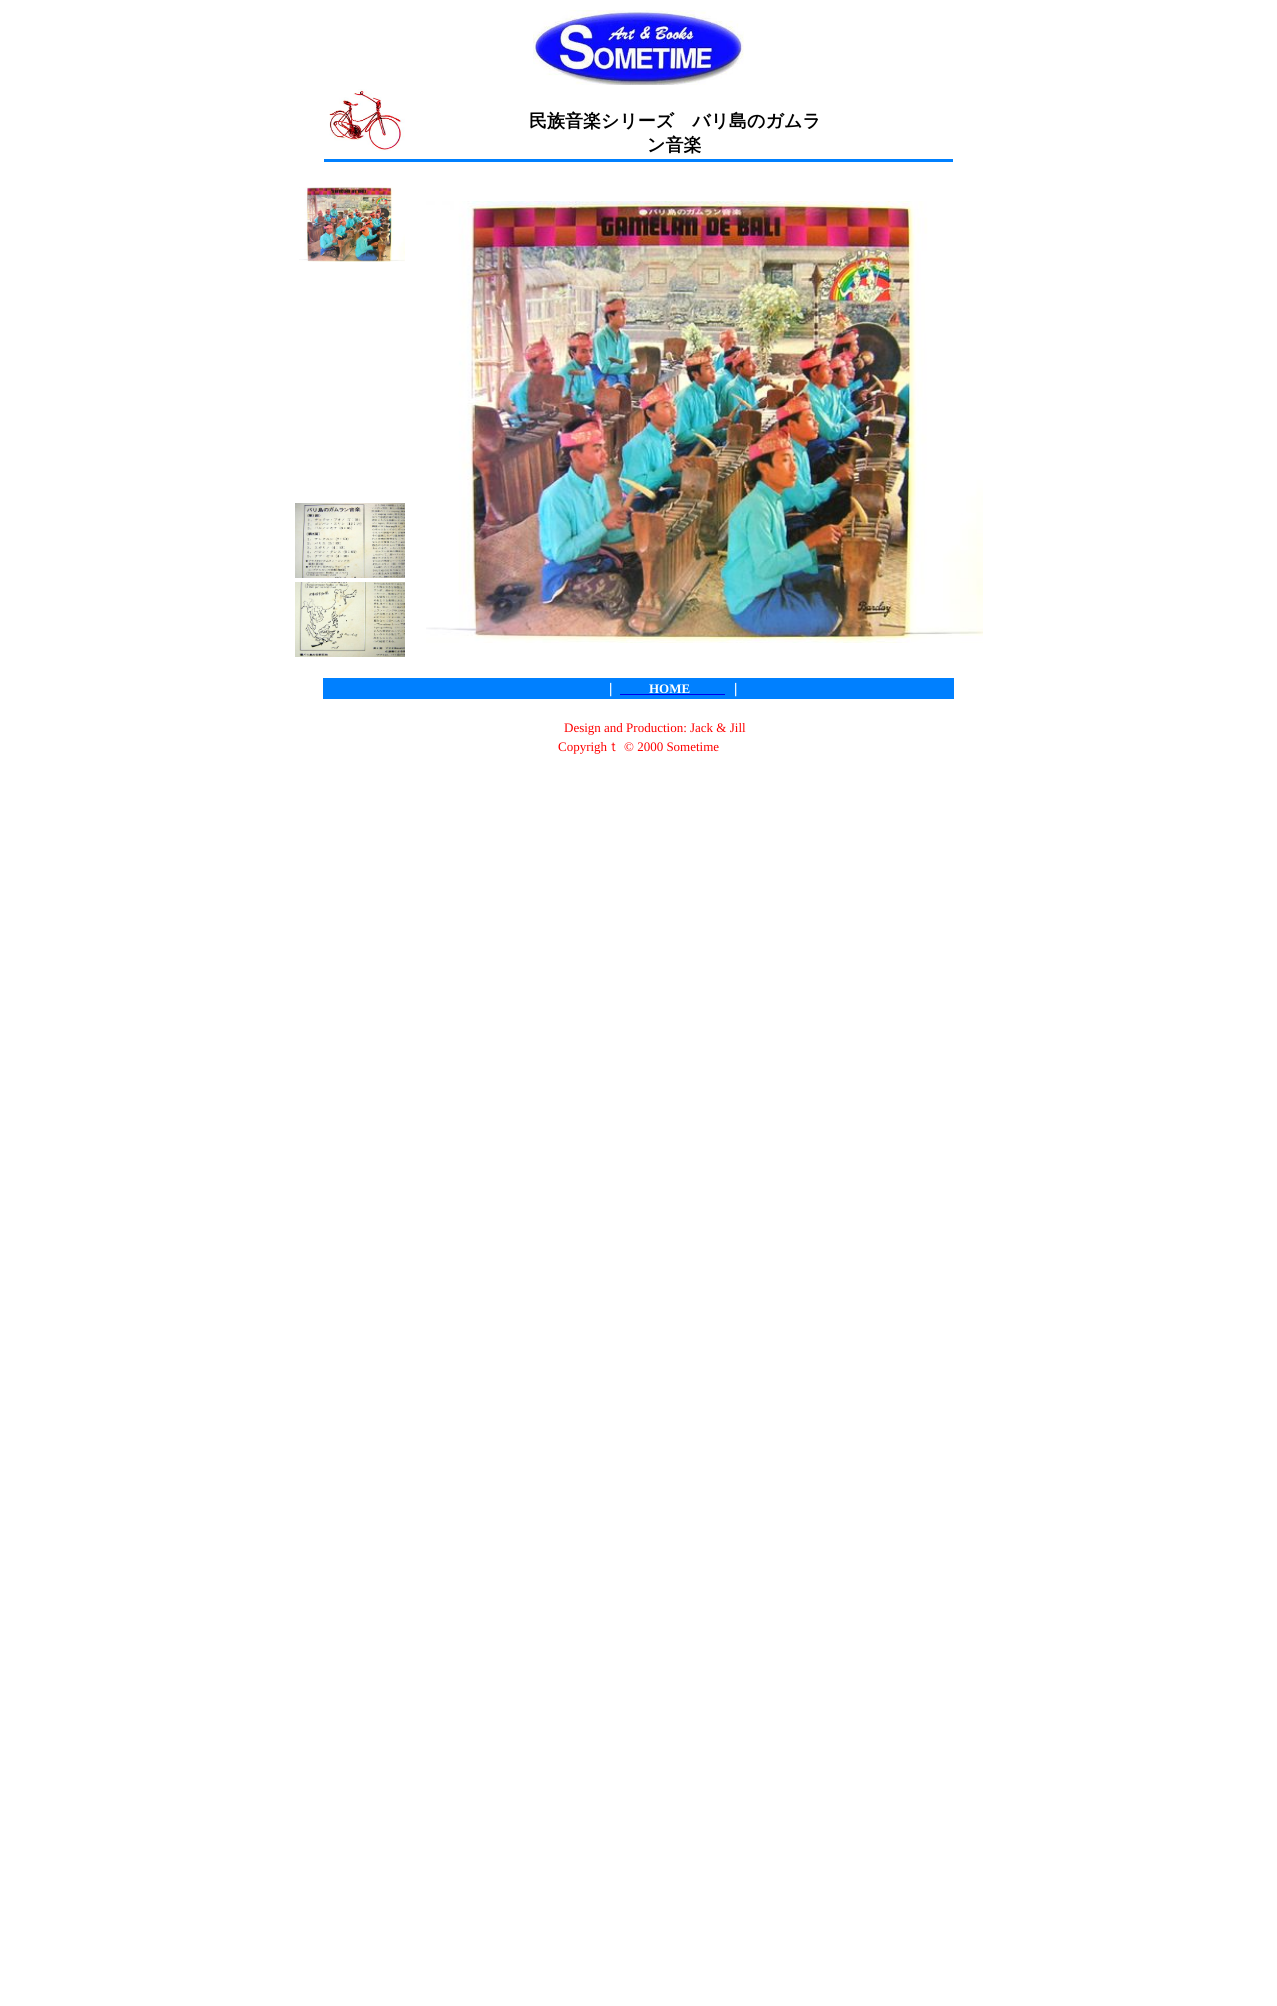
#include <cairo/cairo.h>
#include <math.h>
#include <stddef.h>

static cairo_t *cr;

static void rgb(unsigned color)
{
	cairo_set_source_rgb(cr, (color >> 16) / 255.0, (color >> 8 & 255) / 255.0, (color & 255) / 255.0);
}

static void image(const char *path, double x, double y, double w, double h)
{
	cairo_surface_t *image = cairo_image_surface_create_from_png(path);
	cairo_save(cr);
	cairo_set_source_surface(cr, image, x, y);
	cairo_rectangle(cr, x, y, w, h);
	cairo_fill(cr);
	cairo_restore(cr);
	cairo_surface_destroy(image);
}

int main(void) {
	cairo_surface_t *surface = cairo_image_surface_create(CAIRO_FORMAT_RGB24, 1277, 2006);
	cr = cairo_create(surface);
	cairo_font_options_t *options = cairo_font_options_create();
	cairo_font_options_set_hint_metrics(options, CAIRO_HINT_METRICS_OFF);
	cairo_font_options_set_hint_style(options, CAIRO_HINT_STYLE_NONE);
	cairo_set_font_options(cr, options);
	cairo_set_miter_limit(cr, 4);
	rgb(0xffffff);
	cairo_paint(cr);
	image("img/1.png", 533, 10, 211, 75);
	image("img/2.png", 329, 89, 76, 62);
	rgb(0x0080ff);
	cairo_rectangle(cr, 324, 159, 629, 3);
	cairo_fill(cr);
	image("img/3.png", 299, 187, 106, 75);
	image("img/4.png", 426, 201, 557, 442);
	image("img/5.png", 295, 503, 110, 75);
	image("img/6.png", 295, 582, 110, 75);
	cairo_rectangle(cr, 323, 678, 631, 21);
	cairo_fill(cr);
	rgb(0x0000ee);
	cairo_rectangle(cr, 620, 694, 105, 1);
	cairo_fill(cr);
	cairo_select_font_face(cr, "WenQuanYi Zen Hei", CAIRO_FONT_SLANT_NORMAL, CAIRO_FONT_WEIGHT_BOLD);
	cairo_set_font_size(cr, 18);
	rgb(0x000000);
	cairo_move_to(cr, 529, 127);
	cairo_show_text(cr, "民族音楽シリーズ　バリ島のガムラ");
	cairo_move_to(cr, 647, 151);
	cairo_show_text(cr, "ン音楽");
	cairo_set_font_size(cr, 13);
	rgb(0xffffff);
	cairo_move_to(cr, 604, 693);
	cairo_show_text(cr, "｜");
	cairo_select_font_face(cr, "Liberation Serif", CAIRO_FONT_SLANT_NORMAL, CAIRO_FONT_WEIGHT_BOLD);
	cairo_move_to(cr, 649, 693);
	cairo_show_text(cr, "HOME");
	cairo_select_font_face(cr, "WenQuanYi Zen Hei", CAIRO_FONT_SLANT_NORMAL, CAIRO_FONT_WEIGHT_BOLD);
	cairo_move_to(cr, 729, 693);
	cairo_show_text(cr, "｜");
	cairo_select_font_face(cr, "Liberation Serif", CAIRO_FONT_SLANT_NORMAL, CAIRO_FONT_WEIGHT_NORMAL);
	rgb(0xff0000);
	cairo_move_to(cr, 564, 732);
	cairo_show_text(cr, "Design and Production: Jack & Jill");
	cairo_move_to(cr, 558, 751);
	cairo_show_text(cr, "Copyrigh");
	cairo_select_font_face(cr, "WenQuanYi Zen Hei Medium", CAIRO_FONT_SLANT_NORMAL, CAIRO_FONT_WEIGHT_NORMAL);
	cairo_move_to(cr, 607, 751);
	cairo_show_text(cr, "ｔ");
	cairo_select_font_face(cr, "Liberation Serif", CAIRO_FONT_SLANT_NORMAL, CAIRO_FONT_WEIGHT_NORMAL);
	cairo_move_to(cr, 624, 751);
	cairo_show_text(cr, "© 2000 Sometime");
	cairo_surface_write_to_png(surface, "page.png");
	cairo_font_options_destroy(options);
	cairo_destroy(cr);
	cairo_surface_destroy(surface);
	return 0;
}
